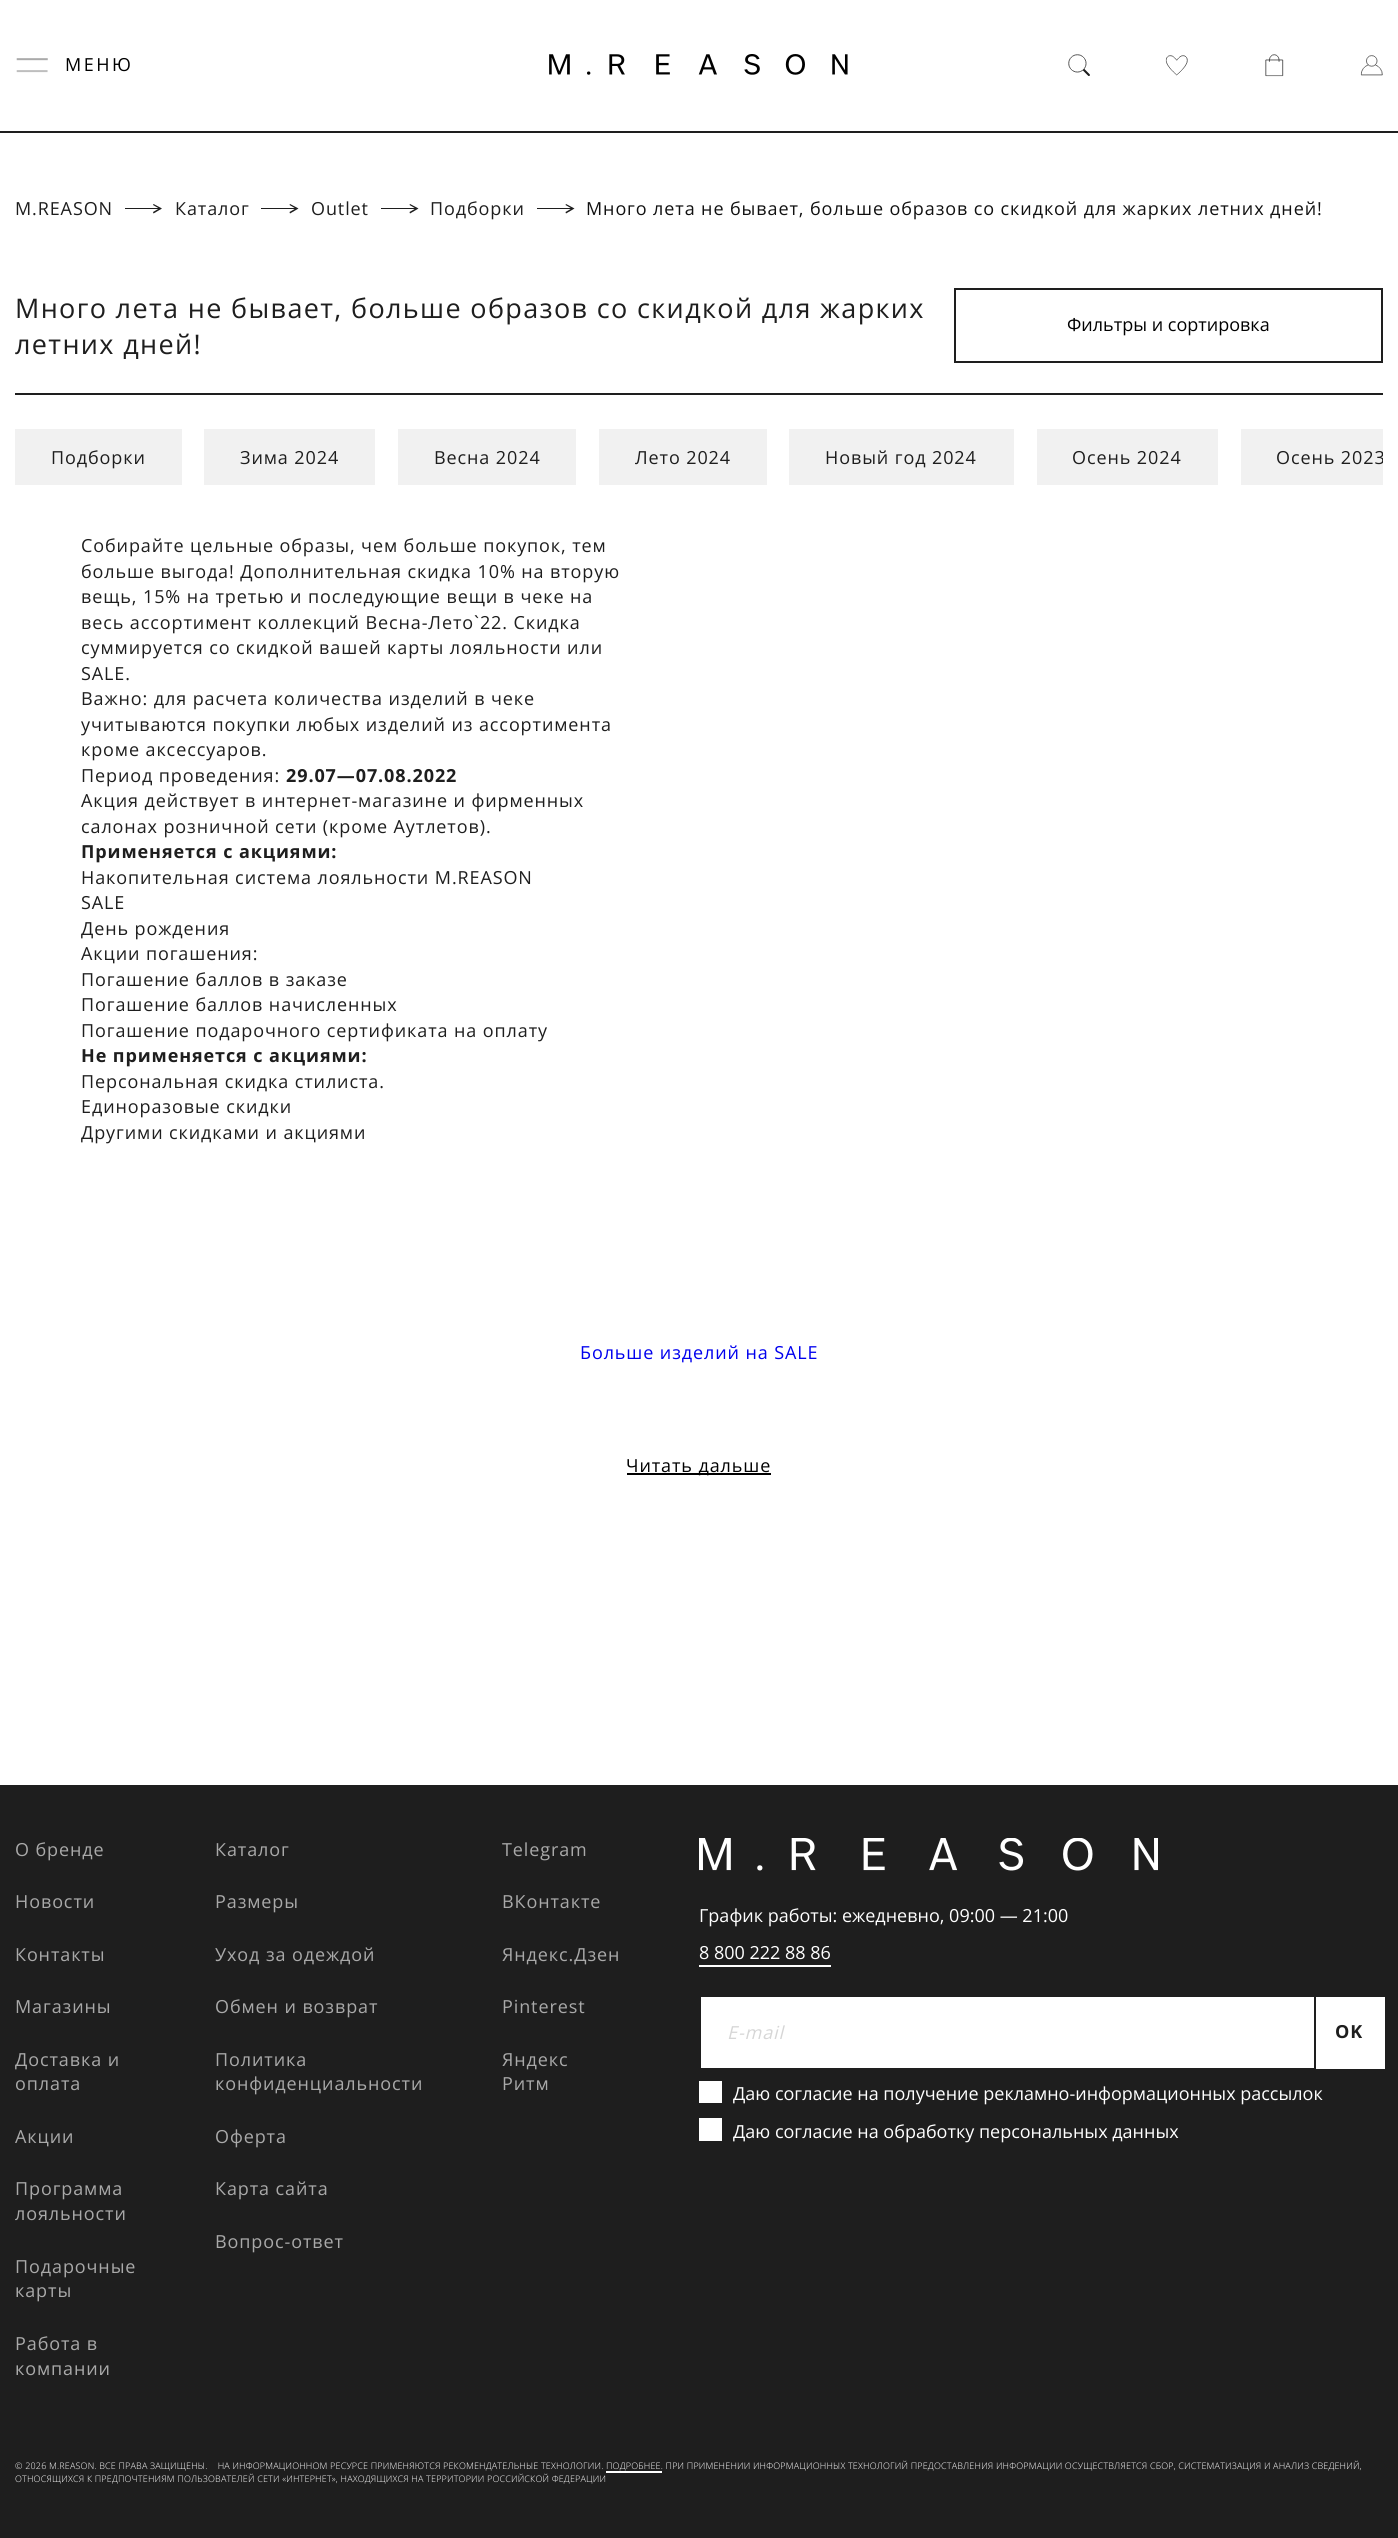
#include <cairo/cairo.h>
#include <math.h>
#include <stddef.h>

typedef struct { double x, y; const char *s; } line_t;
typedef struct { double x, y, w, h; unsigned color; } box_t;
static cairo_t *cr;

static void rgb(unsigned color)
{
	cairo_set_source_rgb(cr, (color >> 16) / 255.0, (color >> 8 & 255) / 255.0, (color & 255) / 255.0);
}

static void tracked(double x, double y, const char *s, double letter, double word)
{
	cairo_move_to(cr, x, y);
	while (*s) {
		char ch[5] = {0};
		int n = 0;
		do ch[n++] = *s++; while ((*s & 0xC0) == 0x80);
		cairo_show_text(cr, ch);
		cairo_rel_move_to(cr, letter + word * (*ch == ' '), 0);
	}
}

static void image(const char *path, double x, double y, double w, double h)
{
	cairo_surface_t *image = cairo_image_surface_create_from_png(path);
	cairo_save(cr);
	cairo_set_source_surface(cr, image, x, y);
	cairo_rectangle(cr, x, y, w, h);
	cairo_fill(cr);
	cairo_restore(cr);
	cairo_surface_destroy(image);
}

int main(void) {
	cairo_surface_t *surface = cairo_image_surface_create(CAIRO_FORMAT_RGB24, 1398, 2538);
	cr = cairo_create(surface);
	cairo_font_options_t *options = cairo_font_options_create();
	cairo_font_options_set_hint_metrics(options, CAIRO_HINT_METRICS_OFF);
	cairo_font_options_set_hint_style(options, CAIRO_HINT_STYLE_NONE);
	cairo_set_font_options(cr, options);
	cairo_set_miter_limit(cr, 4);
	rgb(0xffffff);
	cairo_paint(cr);
	rgb(0x1e1e1e);
	cairo_rectangle(cr, 0, 131, 1398, 2);
	cairo_fill(cr);
	image("img/1.png", 16, 58, 32, 15);
	image("img/2.png", 549, 54, 299, 21);
	image("img/3.png", 1068, 54, 22, 22);
	image("img/4.png", 1165, 55, 23, 21);
	image("img/5.png", 1265, 54, 19, 23);
	image("img/6.png", 1360, 55, 23, 21);
	cairo_rectangle(cr, 125, 208, 34, 1);
	cairo_fill(cr);
	cairo_new_path(cr);
	cairo_move_to(cr, 153.5, 213.5);
	cairo_line_to(cr, 153, 212);
	cairo_line_to(cr, 159, 208.5);
	cairo_line_to(cr, 153, 205);
	cairo_line_to(cr, 153.5, 204);
	cairo_line_to(cr, 162, 208.5);
	cairo_close_path(cr);
	cairo_fill(cr);
	cairo_rectangle(cr, 261, 208, 35, 1);
	cairo_fill(cr);
	cairo_new_path(cr);
	cairo_move_to(cr, 290, 213.5);
	cairo_line_to(cr, 289.5, 212);
	cairo_line_to(cr, 295.5, 208.5);
	cairo_line_to(cr, 289.5, 205);
	cairo_line_to(cr, 290, 204);
	cairo_line_to(cr, 298.5, 208.5);
	cairo_close_path(cr);
	cairo_fill(cr);
	cairo_rectangle(cr, 381, 208, 35, 1);
	cairo_fill(cr);
	cairo_new_path(cr);
	cairo_move_to(cr, 410, 213.5);
	cairo_line_to(cr, 409.5, 212);
	cairo_line_to(cr, 415.5, 208.5);
	cairo_line_to(cr, 409.5, 205);
	cairo_line_to(cr, 410, 204);
	cairo_line_to(cr, 418.5, 208.5);
	cairo_close_path(cr);
	cairo_fill(cr);
	cairo_rectangle(cr, 537, 208, 35, 1);
	cairo_fill(cr);
	cairo_new_path(cr);
	cairo_move_to(cr, 566, 213.5);
	cairo_line_to(cr, 565.5, 212);
	cairo_line_to(cr, 571.5, 208.5);
	cairo_line_to(cr, 565.5, 205);
	cairo_line_to(cr, 566, 204);
	cairo_line_to(cr, 574.5, 208.5);
	cairo_close_path(cr);
	cairo_fill(cr);
	cairo_rectangle(cr, 15, 393, 1368, 2);
	cairo_fill(cr);
	cairo_rectangle(cr, 955, 289, 427, 73);
	cairo_stroke(cr);
	{
		static const box_t items[] = {
			{15, 429, 167, 56, 0xf1f1f1},
			{204, 429, 171, 56, 0xf1f1f1},
			{398, 429, 178, 56, 0xf1f1f1},
			{599, 429, 168, 56, 0xf1f1f1},
			{789, 429, 225, 56, 0xf1f1f1},
			{1037, 429, 181, 56, 0xf1f1f1},
			{1241, 429, 142, 56, 0xf1f1f1},
			{627, 1473, 144, 2, 0x000000},
			{0, 1785, 1398, 753, 0x1e1e1e},
		};
		for (size_t i = 0; i < sizeof items / sizeof *items; i++) {
			rgb(items[i].color);
			cairo_rectangle(cr, items[i].x, items[i].y, items[i].w, items[i].h);
			cairo_fill(cr);
		}
	}
	image("img/7.png", 699, 1838, 459, 33);
	{
		static const box_t items[] = {
			{699, 1965, 132, 2, 0xffffff},
			{701, 1997, 613, 71, 0xffffff},
			{1316, 1997, 69, 72, 0xffffff},
		};
		for (size_t i = 0; i < sizeof items / sizeof *items; i++) {
			rgb(items[i].color);
			cairo_rectangle(cr, items[i].x, items[i].y, items[i].w, items[i].h);
			cairo_fill(cr);
		}
	}
	cairo_rectangle(cr, 700, 2082, 21, 20);
	cairo_stroke(cr);
	cairo_rectangle(cr, 701, 2083, 19, 18);
	cairo_fill(cr);
	cairo_rectangle(cr, 700, 2119, 21, 21);
	cairo_stroke(cr);
	cairo_rectangle(cr, 701, 2120, 19, 19);
	cairo_fill(cr);
	cairo_rectangle(cr, 606, 2471, 56, 2);
	cairo_fill(cr);
	cairo_select_font_face(cr, "Open Sans", CAIRO_FONT_SLANT_NORMAL, CAIRO_FONT_WEIGHT_NORMAL);
	cairo_set_font_size(cr, 18);
	rgb(0x000000);
	tracked(65, 71, "МЕНЮ", 2.5, 0);
	rgb(0x1e1e1e);
	{
		static const line_t items[] = {
			{15, 215, "M.REASON"},
			{175, 215, "Каталог"},
			{311, 215, "Outlet"},
			{430, 215, "Подборки"},
		};
		for (size_t i = 0; i < sizeof items / sizeof *items; i++) {
			tracked(items[i].x, items[i].y, items[i].s, 0.9, 0);
		}
	}
	rgb(0x111111);
	tracked(586, 215, "Много лета не бывает, больше образов со скидкой для жарких летних дней!", 0.9, 0);
	cairo_set_font_size(cr, 27);
	rgb(0x1e1e1e);
	tracked(15, 318, "Много лета не бывает, больше образов со скидкой для жарких", 1.35, 0);
	tracked(15, 354, "летних дней!", 1.35, 0);
	cairo_set_font_size(cr, 18);
	rgb(0x000000);
	cairo_move_to(cr, 1067, 331);
	cairo_show_text(cr, "Фильтры и сортировка");
	rgb(0x1e1e1e);
	{
		static const line_t items[] = {
			{51, 464, "Подборки"},
			{240, 464, "Зима 2024"},
			{434, 464, "Весна 2024"},
			{635, 464, "Лето 2024"},
			{825, 464, "Новый год 2024"},
			{1072, 464, "Осень 2024"},
		};
		for (size_t i = 0; i < sizeof items / sizeof *items; i++) {
			tracked(items[i].x, items[i].y, items[i].s, 0.9, 0);
		}
	}
	cairo_save(cr);
	cairo_rectangle(cr, 15, 429, 1368, 59);
	cairo_clip(cr);
	tracked(1276, 464, "Осень 2023", 0.9, 0);
	cairo_restore(cr);
	{
		static const line_t items[] = {
			{81, 552, "Собирайте цельные образы, чем больше покупок, тем"},
			{81, 578, "больше выгода! Дополнительная скидка 10% на вторую"},
			{81, 603, "вещь, 15% на третью и последующие вещи в чеке на"},
			{81, 629, "весь ассортимент коллекций Весна-Лето`22. Скидка"},
			{81, 654, "суммируется со скидкой вашей карты лояльности или"},
			{81, 680, "SALE."},
			{81, 705, "Важно: для расчета количества изделий в чеке"},
			{81, 731, "учитываются покупки любых изделий из ассортимента"},
			{81, 756, "кроме аксессуаров."},
			{81, 782, "Период проведения:"},
		};
		for (size_t i = 0; i < sizeof items / sizeof *items; i++) {
			tracked(items[i].x, items[i].y, items[i].s, 0.9, 0);
		}
	}
	cairo_select_font_face(cr, "Open Sans", CAIRO_FONT_SLANT_NORMAL, CAIRO_FONT_WEIGHT_BOLD);
	tracked(286, 782, "29.07—07.08.2022", 0.9, 0);
	cairo_select_font_face(cr, "Open Sans", CAIRO_FONT_SLANT_NORMAL, CAIRO_FONT_WEIGHT_NORMAL);
	tracked(81, 807, "Акция действует в интернет-магазине и фирменных", 0.9, 0);
	tracked(81, 833, "салонах розничной сети (кроме Аутлетов).", 0.9, 0);
	cairo_select_font_face(cr, "Open Sans", CAIRO_FONT_SLANT_NORMAL, CAIRO_FONT_WEIGHT_BOLD);
	tracked(81, 858, "Применяется с акциями:", 0.9, 0);
	cairo_select_font_face(cr, "Open Sans", CAIRO_FONT_SLANT_NORMAL, CAIRO_FONT_WEIGHT_NORMAL);
	{
		static const line_t items[] = {
			{81, 884, "Накопительная система лояльности M.REASON"},
			{81, 909, "SALE"},
			{81, 935, "День рождения"},
			{81, 960, "Акции погашения:"},
			{81, 986, "Погашение баллов в заказе"},
			{81, 1011, "Погашение баллов начисленных"},
			{81, 1037, "Погашение подарочного сертификата на оплату"},
		};
		for (size_t i = 0; i < sizeof items / sizeof *items; i++) {
			tracked(items[i].x, items[i].y, items[i].s, 0.9, 0);
		}
	}
	cairo_select_font_face(cr, "Open Sans", CAIRO_FONT_SLANT_NORMAL, CAIRO_FONT_WEIGHT_BOLD);
	tracked(81, 1062, "Не применяется с акциями:", 0.9, 0);
	cairo_select_font_face(cr, "Open Sans", CAIRO_FONT_SLANT_NORMAL, CAIRO_FONT_WEIGHT_NORMAL);
	{
		static const line_t items[] = {
			{81, 1088, "Персональная скидка стилиста."},
			{81, 1113, "Единоразовые скидки"},
			{81, 1139, "Другими скидками и акциями"},
		};
		for (size_t i = 0; i < sizeof items / sizeof *items; i++) {
			tracked(items[i].x, items[i].y, items[i].s, 0.9, 0);
		}
	}
	rgb(0x0000ee);
	tracked(580, 1359, "Больше изделий на SALE", 0.9, 0);
	rgb(0x000000);
	tracked(626, 1472, "Читать дальше", 0.9, 0);
	rgb(0xa9a9a9);
	{
		static const line_t items[] = {
			{15, 1856, "О бренде"},
			{15, 1908, "Новости"},
			{15, 1961, "Контакты"},
			{15, 2013, "Магазины"},
			{15, 2066, "Доставка и"},
			{15, 2090, "оплата"},
			{15, 2143, "Акции"},
			{15, 2195, "Программа"},
			{15, 2220, "лояльности"},
			{15, 2273, "Подарочные"},
			{15, 2297, "карты"},
			{15, 2350, "Работа в"},
			{15, 2375, "компании"},
			{215, 1856, "Каталог"},
			{215, 1908, "Размеры"},
			{215, 1961, "Уход за одеждой"},
			{215, 2013, "Обмен и возврат"},
			{215, 2066, "Политика"},
			{215, 2090, "конфиденциальности"},
			{215, 2143, "Оферта"},
			{215, 2195, "Карта сайта"},
			{215, 2248, "Вопрос-ответ"},
			{502, 1856, "Telegram"},
			{502, 1908, "ВКонтакте"},
			{502, 1961, "Яндекс.Дзен"},
			{502, 2013, "Pinterest"},
			{502, 2066, "Яндекс"},
			{502, 2090, "Ритм"},
		};
		for (size_t i = 0; i < sizeof items / sizeof *items; i++) {
			tracked(items[i].x, items[i].y, items[i].s, 0.9, 0);
		}
	}
	rgb(0xffffff);
	cairo_move_to(cr, 699, 1922);
	cairo_show_text(cr, "График работы: ежедневно, 09:00 — 21:00");
	cairo_move_to(cr, 699, 1959);
	cairo_show_text(cr, "8 800 222 88 86");
	cairo_select_font_face(cr, "Open Sans", CAIRO_FONT_SLANT_ITALIC, CAIRO_FONT_WEIGHT_NORMAL);
	rgb(0xd6d6d6);
	tracked(727, 2039, "E-mail", 0.9, 0);
	cairo_select_font_face(cr, "Open Sans", CAIRO_FONT_SLANT_NORMAL, CAIRO_FONT_WEIGHT_BOLD);
	rgb(0x1e1e1e);
	tracked(1335, 2038, "OK", 0.9, 0);
	cairo_select_font_face(cr, "Open Sans", CAIRO_FONT_SLANT_NORMAL, CAIRO_FONT_WEIGHT_NORMAL);
	rgb(0xffffff);
	cairo_move_to(cr, 733, 2100);
	cairo_show_text(cr, "Даю согласие на получение рекламно-информационных рассылок");
	cairo_move_to(cr, 733, 2138);
	cairo_show_text(cr, "Даю согласие на обработку персональных данных");
	cairo_select_font_face(cr, "Open Sans Light", CAIRO_FONT_SLANT_NORMAL, CAIRO_FONT_WEIGHT_NORMAL);
	cairo_set_font_size(cr, 9);
	tracked(15, 2469, "© 2026 M.REASON. ВСЕ ПРАВА ЗАЩИЩЕНЫ.    НА ИНФОРМАЦИОННОМ РЕСУРСЕ ПРИМЕНЯЮТСЯ РЕКОМЕНДАТЕЛЬНЫЕ ТЕХНОЛОГИИ. ПОДРОБНЕЕ. ПРИ ПРИМЕНЕНИИ ИНФОРМАЦИОННЫХ ТЕХНОЛОГИЙ ПРЕДОСТАВЛЕНИЯ ИНФОРМАЦИИ ОСУЩЕСТВЛЯЕТСЯ СБОР, СИСТЕМАТИЗАЦИЯ И АНАЛИЗ СВЕДЕНИЙ,", 0.18, 0);
	tracked(15, 2482, "ОТНОСЯЩИХСЯ К ПРЕДПОЧТЕНИЯМ ПОЛЬЗОВАТЕЛЕЙ СЕТИ «ИНТЕРНЕТ», НАХОДЯЩИХСЯ НА ТЕРРИТОРИИ РОССИЙСКОЙ ФЕДЕРАЦИИ", 0.18, 0);
	cairo_surface_write_to_png(surface, "page.png");
	cairo_font_options_destroy(options);
	cairo_destroy(cr);
	cairo_surface_destroy(surface);
	return 0;
}
